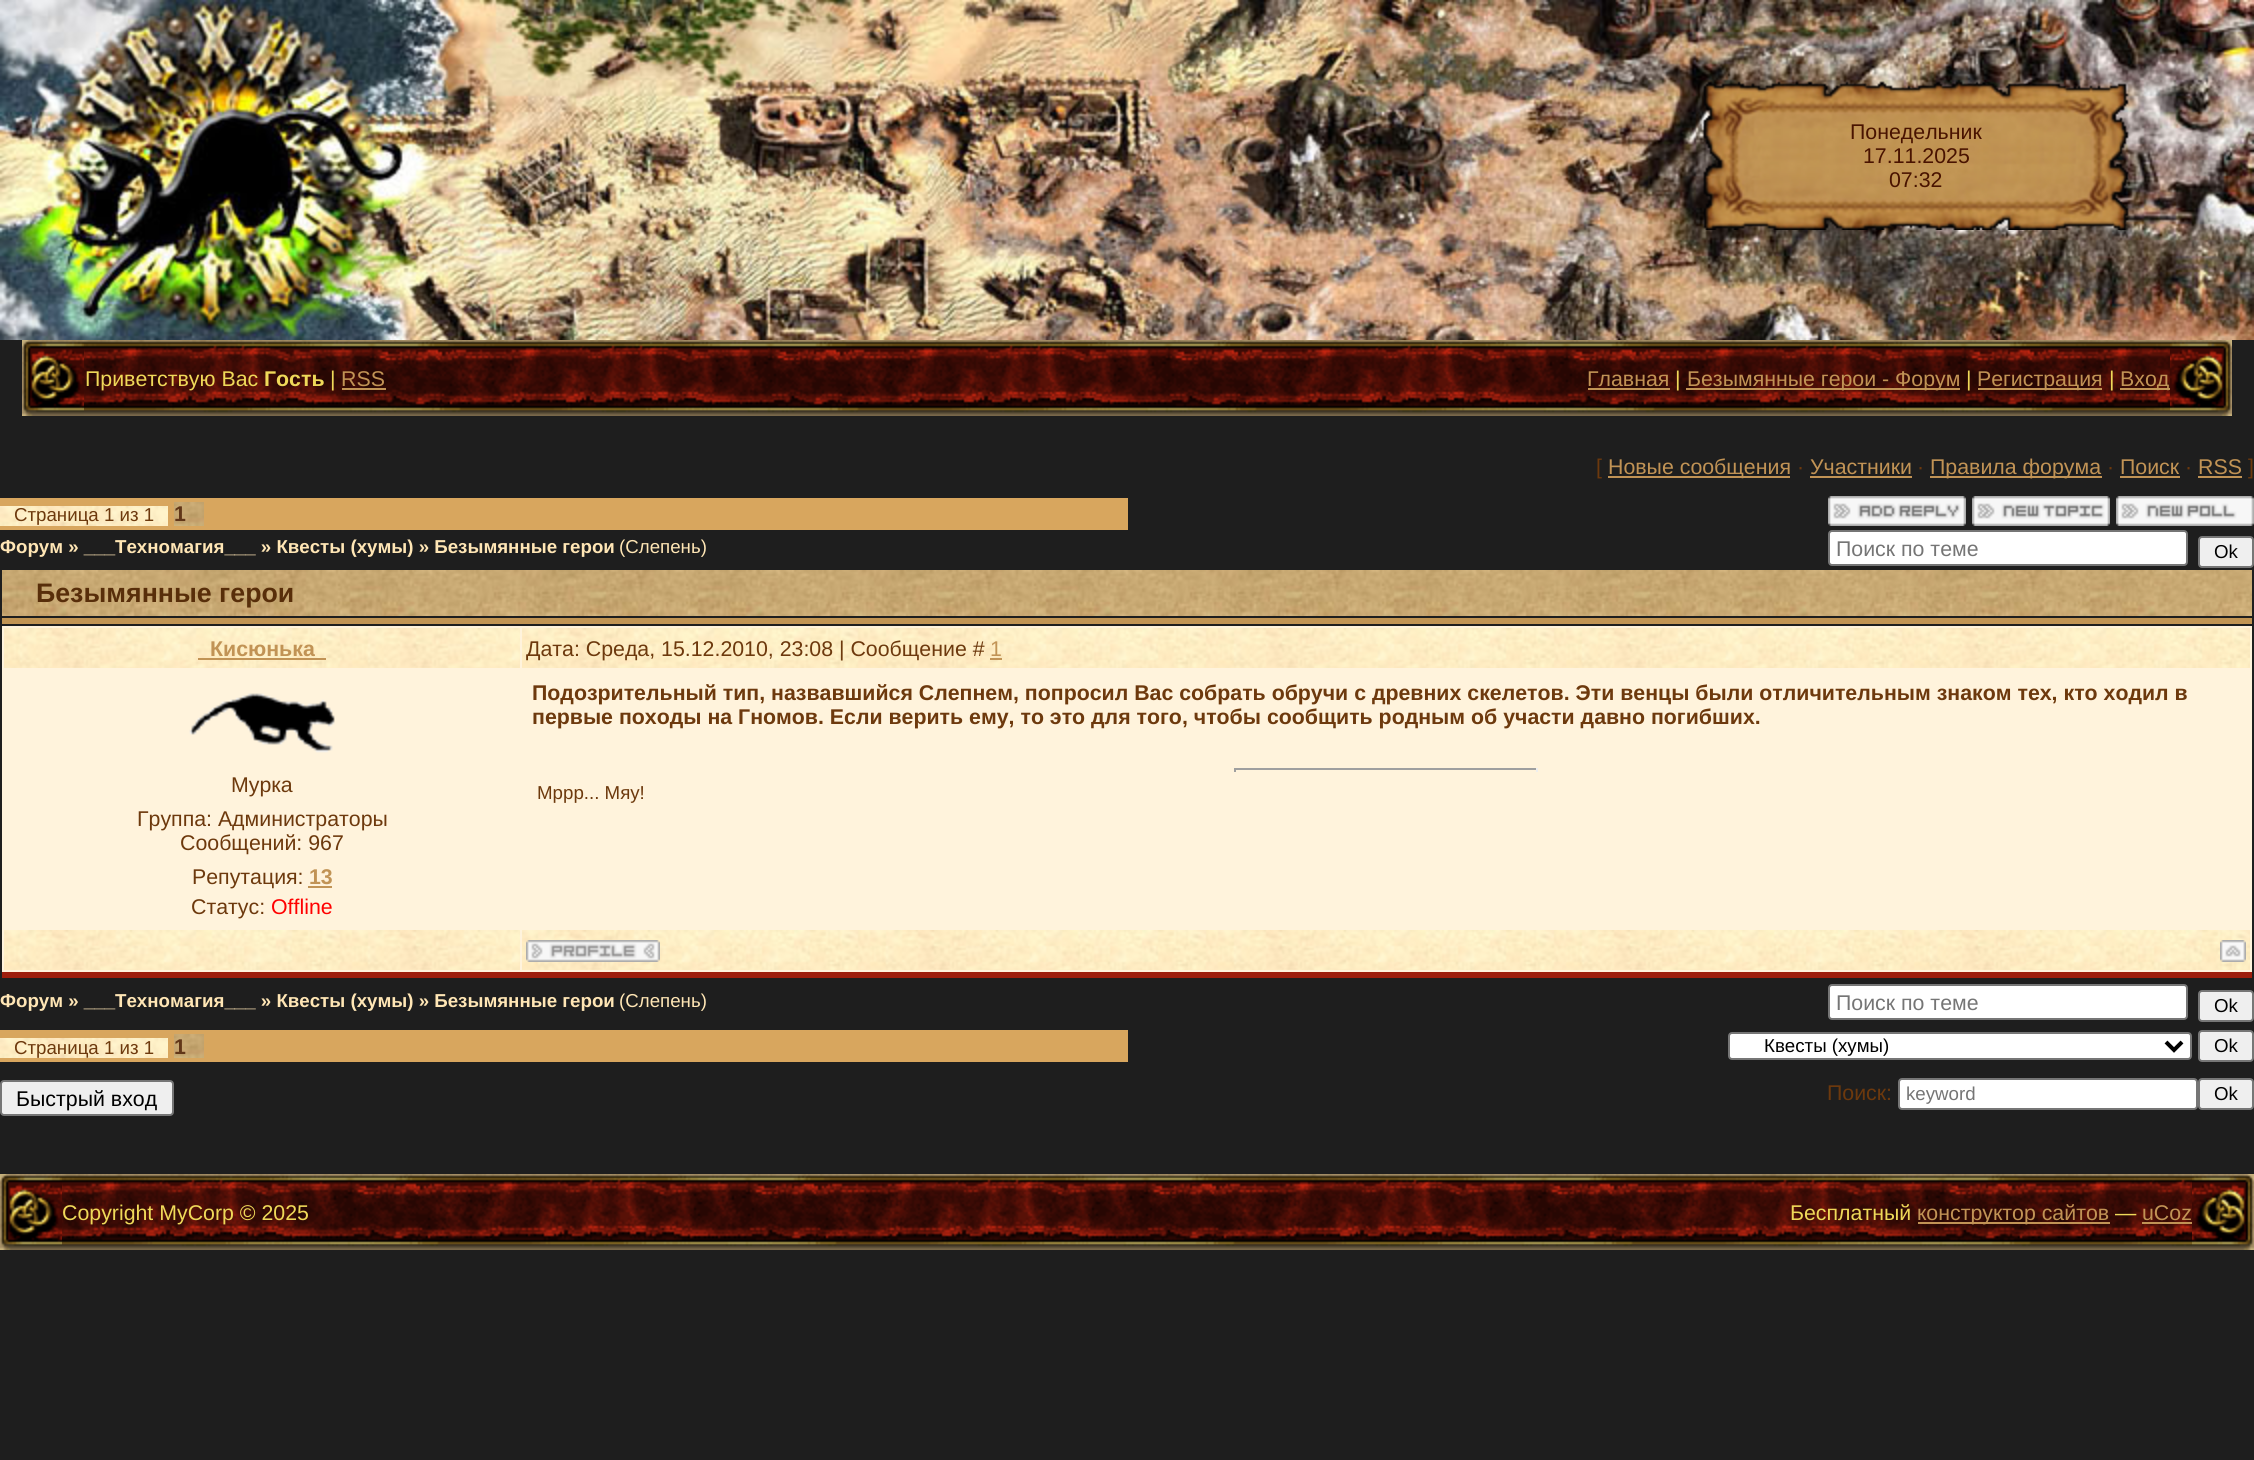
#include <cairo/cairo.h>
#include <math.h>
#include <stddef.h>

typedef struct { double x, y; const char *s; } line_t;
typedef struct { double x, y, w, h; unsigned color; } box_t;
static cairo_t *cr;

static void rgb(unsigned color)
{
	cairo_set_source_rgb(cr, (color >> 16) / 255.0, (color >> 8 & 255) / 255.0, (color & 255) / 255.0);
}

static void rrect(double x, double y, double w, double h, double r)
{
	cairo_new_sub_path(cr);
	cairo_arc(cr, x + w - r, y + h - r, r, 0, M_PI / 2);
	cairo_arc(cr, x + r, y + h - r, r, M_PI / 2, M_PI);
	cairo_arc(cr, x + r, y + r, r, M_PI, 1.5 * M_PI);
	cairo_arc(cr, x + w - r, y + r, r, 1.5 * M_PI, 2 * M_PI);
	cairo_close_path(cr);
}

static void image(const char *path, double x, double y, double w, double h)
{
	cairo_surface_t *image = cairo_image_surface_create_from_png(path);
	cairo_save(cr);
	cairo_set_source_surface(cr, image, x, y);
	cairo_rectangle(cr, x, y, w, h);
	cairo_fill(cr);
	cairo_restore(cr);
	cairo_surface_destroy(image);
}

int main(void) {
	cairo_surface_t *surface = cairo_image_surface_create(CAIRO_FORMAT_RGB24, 2254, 1460);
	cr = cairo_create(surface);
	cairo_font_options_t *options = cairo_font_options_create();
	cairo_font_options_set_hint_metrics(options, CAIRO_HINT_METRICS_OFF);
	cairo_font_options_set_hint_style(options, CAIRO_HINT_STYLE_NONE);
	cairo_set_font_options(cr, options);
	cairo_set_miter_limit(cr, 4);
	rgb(0x1e1e1e);
	cairo_paint(cr);
	image("img/1.png", 0, 0, 2254, 340);
	image("img/2.png", 1703, 81, 426, 149);
	image("img/3.png", 84, 340, 2086, 76);
	image("img/4.png", 22, 340, 62, 76);
	{
		static const box_t items[] = {
			{342, 388, 44, 2, 0xc19355},
			{1588, 388, 82, 2, 0xc19355},
			{1686, 388, 274, 2, 0xc19355},
			{1978, 388, 124, 2, 0xc19355},
			{2120, 388, 50, 2, 0xc19355},
		};
		for (size_t i = 0; i < sizeof items / sizeof *items; i++) {
			rgb(items[i].color);
			cairo_rectangle(cr, items[i].x, items[i].y, items[i].w, items[i].h);
			cairo_fill(cr);
		}
	}
	image("img/5.png", 2170, 340, 62, 76);
	{
		static const box_t items[] = {
			{1608, 476, 182, 2, 0xc19355},
			{1810, 476, 102, 2, 0xc19355},
			{1930, 476, 172, 2, 0xc19355},
			{2120, 476, 60, 2, 0xc19355},
			{2198, 476, 44, 2, 0xc19355},
			{0, 498, 1128, 32, 0xd8a65e},
		};
		for (size_t i = 0; i < sizeof items / sizeof *items; i++) {
			rgb(items[i].color);
			cairo_rectangle(cr, items[i].x, items[i].y, items[i].w, items[i].h);
			cairo_fill(cr);
		}
	}
	image("img/6.png", 0, 506, 168, 20);
	image("img/7.png", 174, 502, 30, 24);
	image("img/8.png", 1828, 496, 138, 30);
	image("img/9.png", 1972, 496, 138, 30);
	image("img/10.png", 2116, 496, 138, 30);
	rgb(0xffffff);
	rrect(1829, 531, 358, 34, 3);
	cairo_fill_preserve(cr);
	rgb(0x767676);
	cairo_stroke(cr);
	rgb(0xefefef);
	rrect(2199, 537, 54, 30, 3);
	cairo_fill_preserve(cr);
	rgb(0x767676);
	cairo_stroke(cr);
	image("img/11.png", 2, 570, 2250, 46);
	{
		static const box_t items[] = {
			{2, 618, 2250, 6, 0xc19453},
			{2, 626, 2250, 346, 0xfff3dc},
			{2, 972, 2250, 6, 0x9d1e0d},
		};
		for (size_t i = 0; i < sizeof items / sizeof *items; i++) {
			rgb(items[i].color);
			cairo_rectangle(cr, items[i].x, items[i].y, items[i].w, items[i].h);
			cairo_fill(cr);
		}
	}
	image("img/12.png", 4, 628, 516, 40);
	rgb(0xc19355);
	cairo_rectangle(cr, 198, 658, 128, 2);
	cairo_fill(cr);
	image("img/13.png", 522, 628, 1728, 40);
	{
		static const box_t items[] = {
			{990, 658, 12, 2, 0xc19355},
			{1234, 768, 304, 2, 0x9f9f9f},
			{1536, 768, 2, 4, 0xeeeeee},
			{1234, 768, 2, 4, 0x9f9f9f},
		};
		for (size_t i = 0; i < sizeof items / sizeof *items; i++) {
			rgb(items[i].color);
			cairo_rectangle(cr, items[i].x, items[i].y, items[i].w, items[i].h);
			cairo_fill(cr);
		}
	}
	image("img/14.png", 189, 693, 146, 60);
	rgb(0xc19355);
	cairo_rectangle(cr, 308, 886, 24, 2);
	cairo_fill(cr);
	image("img/12.png", 4, 930, 516, 40);
	image("img/13.png", 522, 930, 1728, 40);
	image("img/15.png", 526, 940, 134, 22);
	image("img/16.png", 2220, 940, 26, 22);
	rgb(0xffffff);
	rrect(1829, 985, 358, 34, 3);
	cairo_fill_preserve(cr);
	rgb(0x767676);
	cairo_stroke(cr);
	rgb(0xefefef);
	rrect(2199, 991, 54, 30, 3);
	cairo_fill_preserve(cr);
	rgb(0x767676);
	cairo_stroke(cr);
	rgb(0xd8a65e);
	cairo_rectangle(cr, 0, 1030, 1128, 32);
	cairo_fill(cr);
	image("img/6.png", 0, 1038, 168, 20);
	image("img/7.png", 174, 1034, 30, 24);
	rgb(0xffffff);
	rrect(1729, 1033, 462, 26, 3);
	cairo_fill_preserve(cr);
	rgb(0x767676);
	cairo_stroke(cr);
	cairo_new_path(cr);
	cairo_move_to(cr, 2166, 1042);
	cairo_line_to(cr, 2174, 1050);
	cairo_line_to(cr, 2182, 1042);
	rgb(0x000000);
	cairo_set_line_width(cr, 4);
	cairo_stroke(cr);
	rgb(0xefefef);
	rrect(2199, 1031, 54, 30, 3);
	cairo_fill_preserve(cr);
	rgb(0x767676);
	cairo_set_line_width(cr, 2);
	cairo_stroke(cr);
	rgb(0xefefef);
	rrect(1, 1081, 172, 34, 3);
	cairo_fill_preserve(cr);
	rgb(0x767676);
	cairo_stroke(cr);
	rgb(0xffffff);
	rrect(1899, 1079, 298, 30, 3);
	cairo_fill_preserve(cr);
	rgb(0x767676);
	cairo_stroke(cr);
	rgb(0xefefef);
	rrect(2199, 1079, 54, 30, 3);
	cairo_fill_preserve(cr);
	rgb(0x767676);
	cairo_stroke(cr);
	image("img/17.png", 62, 1174, 2130, 76);
	image("img/4.png", 0, 1174, 62, 76);
	rgb(0xc19355);
	cairo_rectangle(cr, 1918, 1222, 192, 2);
	cairo_fill(cr);
	cairo_rectangle(cr, 2142, 1222, 50, 2);
	cairo_fill(cr);
	image("img/5.png", 2192, 1174, 62, 76);
	cairo_select_font_face(cr, "Liberation Sans", CAIRO_FONT_SLANT_NORMAL, CAIRO_FONT_WEIGHT_NORMAL);
	cairo_set_font_size(cr, 21.33);
	rgb(0x491300);
	{
		static const line_t items[] = {
			{1850, 139, "Понедельник"},
			{1863, 163, "17.11.2025"},
			{1889, 187, "07:32"},
		};
		for (size_t i = 0; i < sizeof items / sizeof *items; i++) {
			cairo_move_to(cr, items[i].x, items[i].y);
			cairo_show_text(cr, items[i].s);
		}
	}
	rgb(0xefd959);
	cairo_move_to(cr, 85, 386);
	cairo_show_text(cr, "Приветствую Вас");
	cairo_select_font_face(cr, "Liberation Sans", CAIRO_FONT_SLANT_NORMAL, CAIRO_FONT_WEIGHT_BOLD);
	cairo_move_to(cr, 264, 386);
	cairo_show_text(cr, "Гость");
	cairo_select_font_face(cr, "Liberation Sans", CAIRO_FONT_SLANT_NORMAL, CAIRO_FONT_WEIGHT_NORMAL);
	cairo_move_to(cr, 330, 386);
	cairo_show_text(cr, "|");
	rgb(0xc19355);
	cairo_move_to(cr, 341, 386);
	cairo_show_text(cr, "RSS");
	cairo_move_to(cr, 1587, 386);
	cairo_show_text(cr, "Главная");
	rgb(0xefd959);
	cairo_move_to(cr, 1675, 386);
	cairo_show_text(cr, "|");
	rgb(0xc19355);
	cairo_move_to(cr, 1687, 386);
	cairo_show_text(cr, "Безымянные герои - Форум");
	rgb(0xefd959);
	cairo_move_to(cr, 1966, 386);
	cairo_show_text(cr, "|");
	rgb(0xc19355);
	cairo_move_to(cr, 1977, 386);
	cairo_show_text(cr, "Регистрация");
	rgb(0xefd959);
	cairo_move_to(cr, 2109, 386);
	cairo_show_text(cr, "|");
	rgb(0xc19355);
	cairo_move_to(cr, 2120, 386);
	cairo_show_text(cr, "Вход");
	rgb(0x6d390d);
	cairo_move_to(cr, 1596, 474);
	cairo_show_text(cr, "[");
	rgb(0xc19355);
	cairo_move_to(cr, 1608, 474);
	cairo_show_text(cr, "Новые сообщения");
	rgb(0x6d390d);
	cairo_move_to(cr, 1797, 474);
	cairo_show_text(cr, "·");
	rgb(0xc19355);
	cairo_move_to(cr, 1810, 474);
	cairo_show_text(cr, "Участники");
	rgb(0x6d390d);
	cairo_move_to(cr, 1917, 474);
	cairo_show_text(cr, "·");
	rgb(0xc19355);
	cairo_move_to(cr, 1930, 474);
	cairo_show_text(cr, "Правила форума");
	rgb(0x6d390d);
	cairo_move_to(cr, 2107, 474);
	cairo_show_text(cr, "·");
	rgb(0xc19355);
	cairo_move_to(cr, 2120, 474);
	cairo_show_text(cr, "Поиск");
	rgb(0x6d390d);
	cairo_move_to(cr, 2185, 474);
	cairo_show_text(cr, "·");
	rgb(0xc19355);
	cairo_move_to(cr, 2198, 474);
	cairo_show_text(cr, "RSS");
	rgb(0x6d390d);
	cairo_move_to(cr, 2248, 474);
	cairo_show_text(cr, "]");
	cairo_set_font_size(cr, 18.7);
	cairo_move_to(cr, 14, 521);
	cairo_show_text(cr, "Страница 1 из 1");
	cairo_select_font_face(cr, "Liberation Sans", CAIRO_FONT_SLANT_NORMAL, CAIRO_FONT_WEIGHT_BOLD);
	cairo_set_font_size(cr, 21.33);
	rgb(0x613618);
	cairo_move_to(cr, 174, 521);
	cairo_show_text(cr, "1");
	cairo_set_font_size(cr, 18.7);
	rgb(0xffe6b5);
	cairo_move_to(cr, 0, 553);
	cairo_show_text(cr, "Форум » ___Техномагия___ » Квесты (хумы) » Безымянные герои");
	cairo_select_font_face(cr, "Liberation Sans", CAIRO_FONT_SLANT_NORMAL, CAIRO_FONT_WEIGHT_NORMAL);
	cairo_move_to(cr, 619, 553);
	cairo_show_text(cr, "(Слепень)");
	cairo_set_font_size(cr, 21.33);
	rgb(0x757575);
	cairo_move_to(cr, 1836, 556);
	cairo_show_text(cr, "Поиск по теме");
	cairo_set_font_size(cr, 18.7);
	rgb(0x000000);
	cairo_move_to(cr, 2214, 558);
	cairo_show_text(cr, "Ok");
	cairo_select_font_face(cr, "Liberation Sans", CAIRO_FONT_SLANT_NORMAL, CAIRO_FONT_WEIGHT_BOLD);
	cairo_set_font_size(cr, 26.75);
	rgb(0x582e0a);
	cairo_move_to(cr, 36, 602);
	cairo_show_text(cr, "Безымянные герои");
	cairo_set_font_size(cr, 21.33);
	rgb(0xc19355);
	cairo_move_to(cr, 210, 656);
	cairo_show_text(cr, "Кисюнька");
	cairo_select_font_face(cr, "Liberation Sans", CAIRO_FONT_SLANT_NORMAL, CAIRO_FONT_WEIGHT_NORMAL);
	rgb(0x6d390d);
	cairo_move_to(cr, 526, 656);
	cairo_show_text(cr, "Дата: Среда, 15.12.2010, 23:08 | Сообщение #");
	rgb(0xc19355);
	cairo_move_to(cr, 990, 656);
	cairo_show_text(cr, "1");
	cairo_select_font_face(cr, "Liberation Sans", CAIRO_FONT_SLANT_NORMAL, CAIRO_FONT_WEIGHT_BOLD);
	rgb(0x6d390d);
	cairo_move_to(cr, 532, 700);
	cairo_show_text(cr, "Подозрительный тип, назвавшийся Слепнем, попросил Вас собрать обручи с древних скелетов. Эти венцы были отличительным знаком тех, кто ходил в");
	cairo_move_to(cr, 532, 724);
	cairo_show_text(cr, "первые походы на Гномов. Если верить ему, то это для того, чтобы сообщить родным об участи давно погибших.");
	cairo_select_font_face(cr, "Liberation Sans", CAIRO_FONT_SLANT_NORMAL, CAIRO_FONT_WEIGHT_NORMAL);
	cairo_set_font_size(cr, 18.7);
	cairo_move_to(cr, 537, 799);
	cairo_show_text(cr, "Мррр... Мяу!");
	cairo_set_font_size(cr, 21.33);
	{
		static const line_t items[] = {
			{231, 792, "Мурка"},
			{137, 826, "Группа: Администраторы"},
			{180, 850, "Сообщений: 967"},
			{192, 884, "Репутация:"},
		};
		for (size_t i = 0; i < sizeof items / sizeof *items; i++) {
			cairo_move_to(cr, items[i].x, items[i].y);
			cairo_show_text(cr, items[i].s);
		}
	}
	cairo_select_font_face(cr, "Liberation Sans", CAIRO_FONT_SLANT_NORMAL, CAIRO_FONT_WEIGHT_BOLD);
	rgb(0xc19355);
	cairo_move_to(cr, 309, 884);
	cairo_show_text(cr, "13");
	cairo_select_font_face(cr, "Liberation Sans", CAIRO_FONT_SLANT_NORMAL, CAIRO_FONT_WEIGHT_NORMAL);
	rgb(0x6d390d);
	cairo_move_to(cr, 191, 914);
	cairo_show_text(cr, "Статус:");
	rgb(0xff0000);
	cairo_move_to(cr, 271, 914);
	cairo_show_text(cr, "Offline");
	cairo_select_font_face(cr, "Liberation Sans", CAIRO_FONT_SLANT_NORMAL, CAIRO_FONT_WEIGHT_BOLD);
	cairo_set_font_size(cr, 18.7);
	rgb(0xffe6b5);
	cairo_move_to(cr, 0, 1007);
	cairo_show_text(cr, "Форум » ___Техномагия___ » Квесты (хумы) » Безымянные герои");
	cairo_select_font_face(cr, "Liberation Sans", CAIRO_FONT_SLANT_NORMAL, CAIRO_FONT_WEIGHT_NORMAL);
	cairo_move_to(cr, 619, 1007);
	cairo_show_text(cr, "(Слепень)");
	cairo_set_font_size(cr, 21.33);
	rgb(0x757575);
	cairo_move_to(cr, 1836, 1010);
	cairo_show_text(cr, "Поиск по теме");
	cairo_set_font_size(cr, 18.7);
	rgb(0x000000);
	cairo_move_to(cr, 2214, 1012);
	cairo_show_text(cr, "Ok");
	rgb(0x6d390d);
	cairo_move_to(cr, 14, 1054);
	cairo_show_text(cr, "Страница 1 из 1");
	cairo_select_font_face(cr, "Liberation Sans", CAIRO_FONT_SLANT_NORMAL, CAIRO_FONT_WEIGHT_BOLD);
	cairo_set_font_size(cr, 21.33);
	rgb(0x613618);
	cairo_move_to(cr, 174, 1054);
	cairo_show_text(cr, "1");
	cairo_select_font_face(cr, "Liberation Sans", CAIRO_FONT_SLANT_NORMAL, CAIRO_FONT_WEIGHT_NORMAL);
	cairo_set_font_size(cr, 18.7);
	rgb(0x000000);
	cairo_move_to(cr, 1764, 1052);
	cairo_show_text(cr, "Квесты (хумы)");
	cairo_move_to(cr, 2214, 1052);
	cairo_show_text(cr, "Ok");
	cairo_set_font_size(cr, 21.33);
	cairo_move_to(cr, 16, 1106);
	cairo_show_text(cr, "Быстрый вход");
	rgb(0x6d390d);
	cairo_move_to(cr, 1827, 1100);
	cairo_show_text(cr, "Поиск:");
	cairo_set_font_size(cr, 18.7);
	rgb(0x757575);
	cairo_move_to(cr, 1906, 1100);
	cairo_show_text(cr, "keyword");
	rgb(0x000000);
	cairo_move_to(cr, 2214, 1100);
	cairo_show_text(cr, "Ok");
	cairo_set_font_size(cr, 21.33);
	rgb(0xefd959);
	cairo_move_to(cr, 62, 1220);
	cairo_show_text(cr, "Copyright MyCorp © 2025");
	cairo_move_to(cr, 1790, 1220);
	cairo_show_text(cr, "Бесплатный");
	rgb(0xc19355);
	cairo_move_to(cr, 1917, 1220);
	cairo_show_text(cr, "конструктор сайтов");
	rgb(0xefd959);
	cairo_move_to(cr, 2115, 1220);
	cairo_show_text(cr, "—");
	rgb(0xc19355);
	cairo_move_to(cr, 2142, 1220);
	cairo_show_text(cr, "uCoz");
	cairo_surface_write_to_png(surface, "page.png");
	cairo_font_options_destroy(options);
	cairo_destroy(cr);
	cairo_surface_destroy(surface);
	return 0;
}
